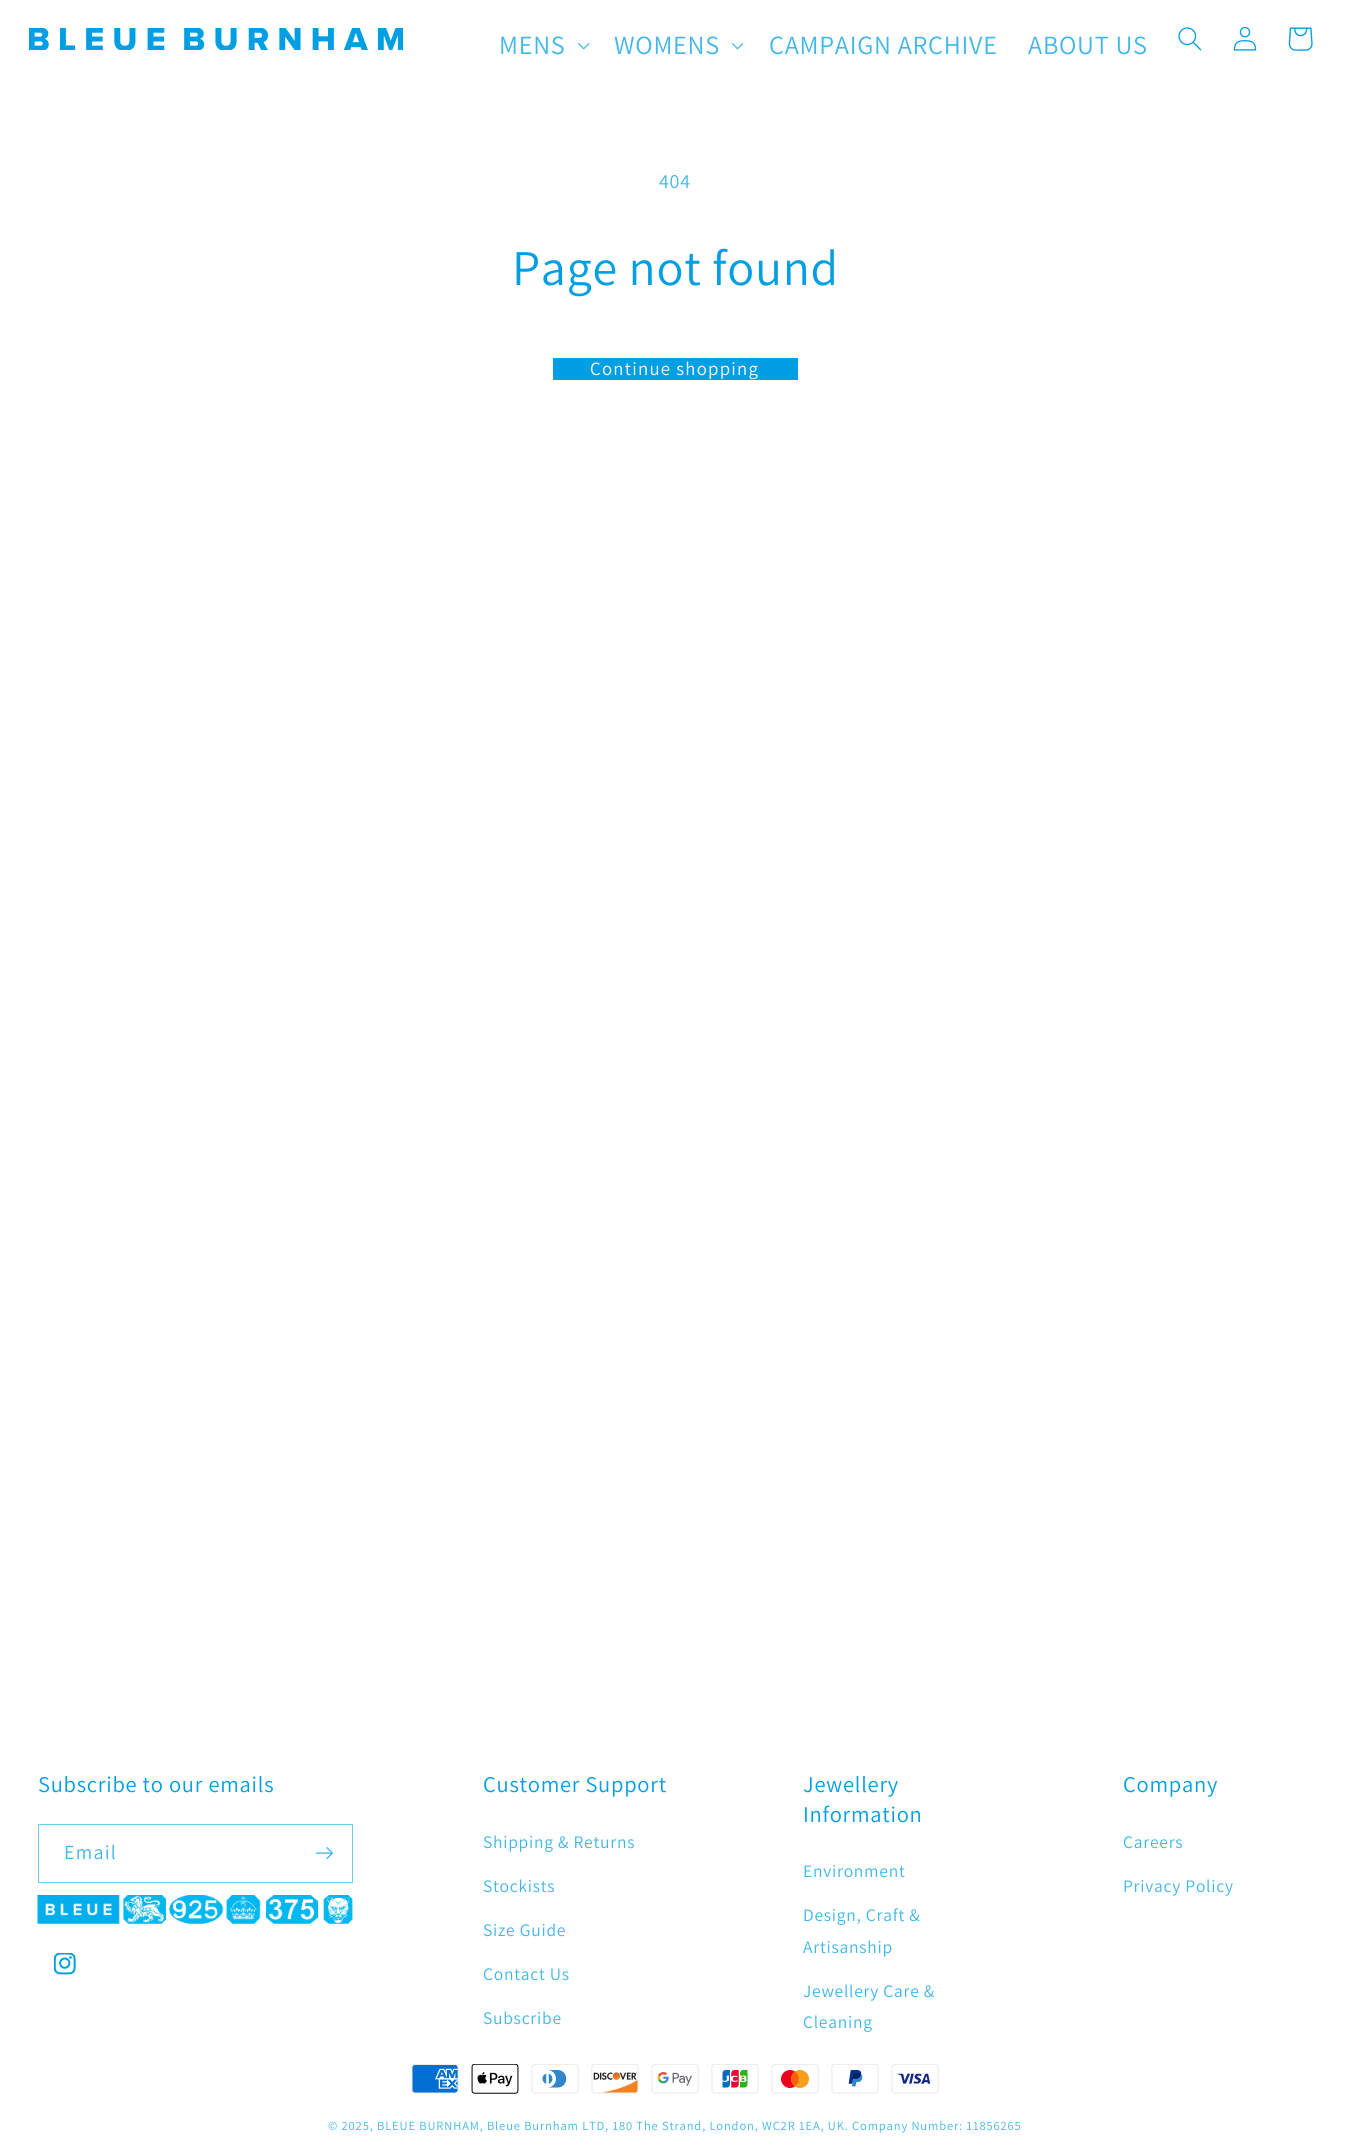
#include <cairo/cairo.h>
#include <math.h>
#include <stddef.h>

typedef struct { double x, y; const char *s; } line_t;
static cairo_t *cr;

static void rgb(unsigned color)
{
	cairo_set_source_rgb(cr, (color >> 16) / 255.0, (color >> 8 & 255) / 255.0, (color & 255) / 255.0);
}

static void tracked(double x, double y, const char *s, double letter, double word)
{
	cairo_move_to(cr, x, y);
	while (*s) {
		char ch[5] = {0};
		int n = 0;
		do ch[n++] = *s++; while ((*s & 0xC0) == 0x80);
		cairo_show_text(cr, ch);
		cairo_rel_move_to(cr, letter + word * (*ch == ' '), 0);
	}
}

static void image(const char *path, double x, double y, double w, double h)
{
	cairo_surface_t *image = cairo_image_surface_create_from_png(path);
	cairo_save(cr);
	cairo_set_source_surface(cr, image, x, y);
	cairo_rectangle(cr, x, y, w, h);
	cairo_fill(cr);
	cairo_restore(cr);
	cairo_surface_destroy(image);
}

int main(void) {
	cairo_surface_t *surface = cairo_image_surface_create(CAIRO_FORMAT_RGB24, 1350, 2137);
	cr = cairo_create(surface);
	cairo_font_options_t *options = cairo_font_options_create();
	cairo_font_options_set_hint_metrics(options, CAIRO_HINT_METRICS_OFF);
	cairo_font_options_set_hint_style(options, CAIRO_HINT_STYLE_NONE);
	cairo_set_font_options(cr, options);
	cairo_set_miter_limit(cr, 4);
	rgb(0xffffff);
	cairo_paint(cr);
	image("img/1.png", 29, 28, 374, 22);
	image("img/2.png", 578, 43, 12, 7);
	image("img/3.png", 731, 43, 13, 7);
	image("img/4.png", 1178, 27, 24, 24);
	image("img/5.png", 1233, 26, 24, 25);
	image("img/6.png", 1288, 27, 25, 24);
	rgb(0x009fe3);
	cairo_rectangle(cr, 554, 359, 243, 20);
	cairo_fill(cr);
	cairo_rectangle(cr, 38.5, 1824.5, 314, 58);
	rgb(0x73caf0);
	cairo_set_line_width(cr, 1);
	cairo_stroke(cr);
	image("img/7.png", 315, 1847, 18, 13);
	image("img/8.png", 37, 1895, 316, 29);
	image("img/9.png", 54, 1953, 22, 22);
	image("img/10.png", 411, 2064, 48, 30);
	image("img/11.png", 471, 2064, 48, 30);
	image("img/12.png", 531, 2064, 48, 30);
	image("img/13.png", 591, 2064, 48, 30);
	image("img/14.png", 651, 2064, 48, 30);
	image("img/15.png", 711, 2064, 48, 30);
	image("img/16.png", 771, 2064, 48, 30);
	image("img/17.png", 831, 2064, 48, 30);
	image("img/18.png", 891, 2064, 48, 30);
	cairo_select_font_face(cr, "Assistant", CAIRO_FONT_SLANT_NORMAL, CAIRO_FONT_WEIGHT_NORMAL);
	cairo_set_font_size(cr, 26.25);
	rgb(0x40b7ea);
	{
		static const line_t items[] = {
			{499, 54, "MENS"},
			{614, 54, "WOMENS"},
			{769, 54, "CAMPAIGN ARCHIVE"},
			{1028, 54, "ABOUT US"},
		};
		for (size_t i = 0; i < sizeof items / sizeof *items; i++) {
			tracked(items[i].x, items[i].y, items[i].s, 0.75, 0);
		}
	}
	cairo_set_font_size(cr, 20);
	tracked(659, 188, "404", 0.75, 0);
	cairo_set_font_size(cr, 50);
	rgb(0x009fe3);
	tracked(512, 285, "Page not found", 0.75, 0);
	cairo_set_font_size(cr, 18.75);
	rgb(0xffffff);
	tracked(590, 375, "Continue shopping", 1.25, 0);
	cairo_rectangle(cr, 553.5, 358.5, 244, 21);
	rgb(0x009fe3);
	cairo_stroke(cr);
	cairo_set_font_size(cr, 22.5);
	tracked(38, 1792, "Subscribe to our emails", 0.75, 0);
	cairo_set_font_size(cr, 20);
	rgb(0x40b7ea);
	tracked(64, 1859, "Email", 1.25, 0);
	cairo_set_font_size(cr, 22.5);
	rgb(0x009fe3);
	tracked(483, 1792, "Customer Support", 0.75, 0);
	cairo_set_font_size(cr, 17.5);
	rgb(0x40b7ea);
	{
		static const line_t items[] = {
			{483, 1848, "Shipping & Returns"},
			{483, 1892, "Stockists"},
			{483, 1936, "Size Guide"},
			{483, 1980, "Contact Us"},
			{483, 2024, "Subscribe"},
		};
		for (size_t i = 0; i < sizeof items / sizeof *items; i++) {
			tracked(items[i].x, items[i].y, items[i].s, 0.75, 0);
		}
	}
	cairo_set_font_size(cr, 22.5);
	rgb(0x009fe3);
	tracked(803, 1792, "Jewellery", 0.75, 0);
	tracked(803, 1822, "Information", 0.75, 0);
	cairo_set_font_size(cr, 17.5);
	rgb(0x40b7ea);
	{
		static const line_t items[] = {
			{803, 1877, "Environment"},
			{803, 1921, "Design, Craft &"},
			{803, 1953, "Artisanship"},
			{803, 1997, "Jewellery Care &"},
			{803, 2028, "Cleaning"},
		};
		for (size_t i = 0; i < sizeof items / sizeof *items; i++) {
			tracked(items[i].x, items[i].y, items[i].s, 0.75, 0);
		}
	}
	cairo_set_font_size(cr, 22.5);
	rgb(0x009fe3);
	tracked(1123, 1792, "Company", 0.75, 0);
	cairo_set_font_size(cr, 17.5);
	rgb(0x40b7ea);
	tracked(1123, 1848, "Careers", 0.75, 0);
	tracked(1123, 1892, "Privacy Policy", 0.75, 0);
	cairo_set_font_size(cr, 12.5);
	tracked(328, 2130, "© 2025, BLEUE BURNHAM, Bleue Burnham LTD, 180 The Strand, London, WC2R 1EA, UK. Company Number: 11856265", 0.88, 0);
	cairo_surface_write_to_png(surface, "page.png");
	cairo_font_options_destroy(options);
	cairo_destroy(cr);
	cairo_surface_destroy(surface);
	return 0;
}
